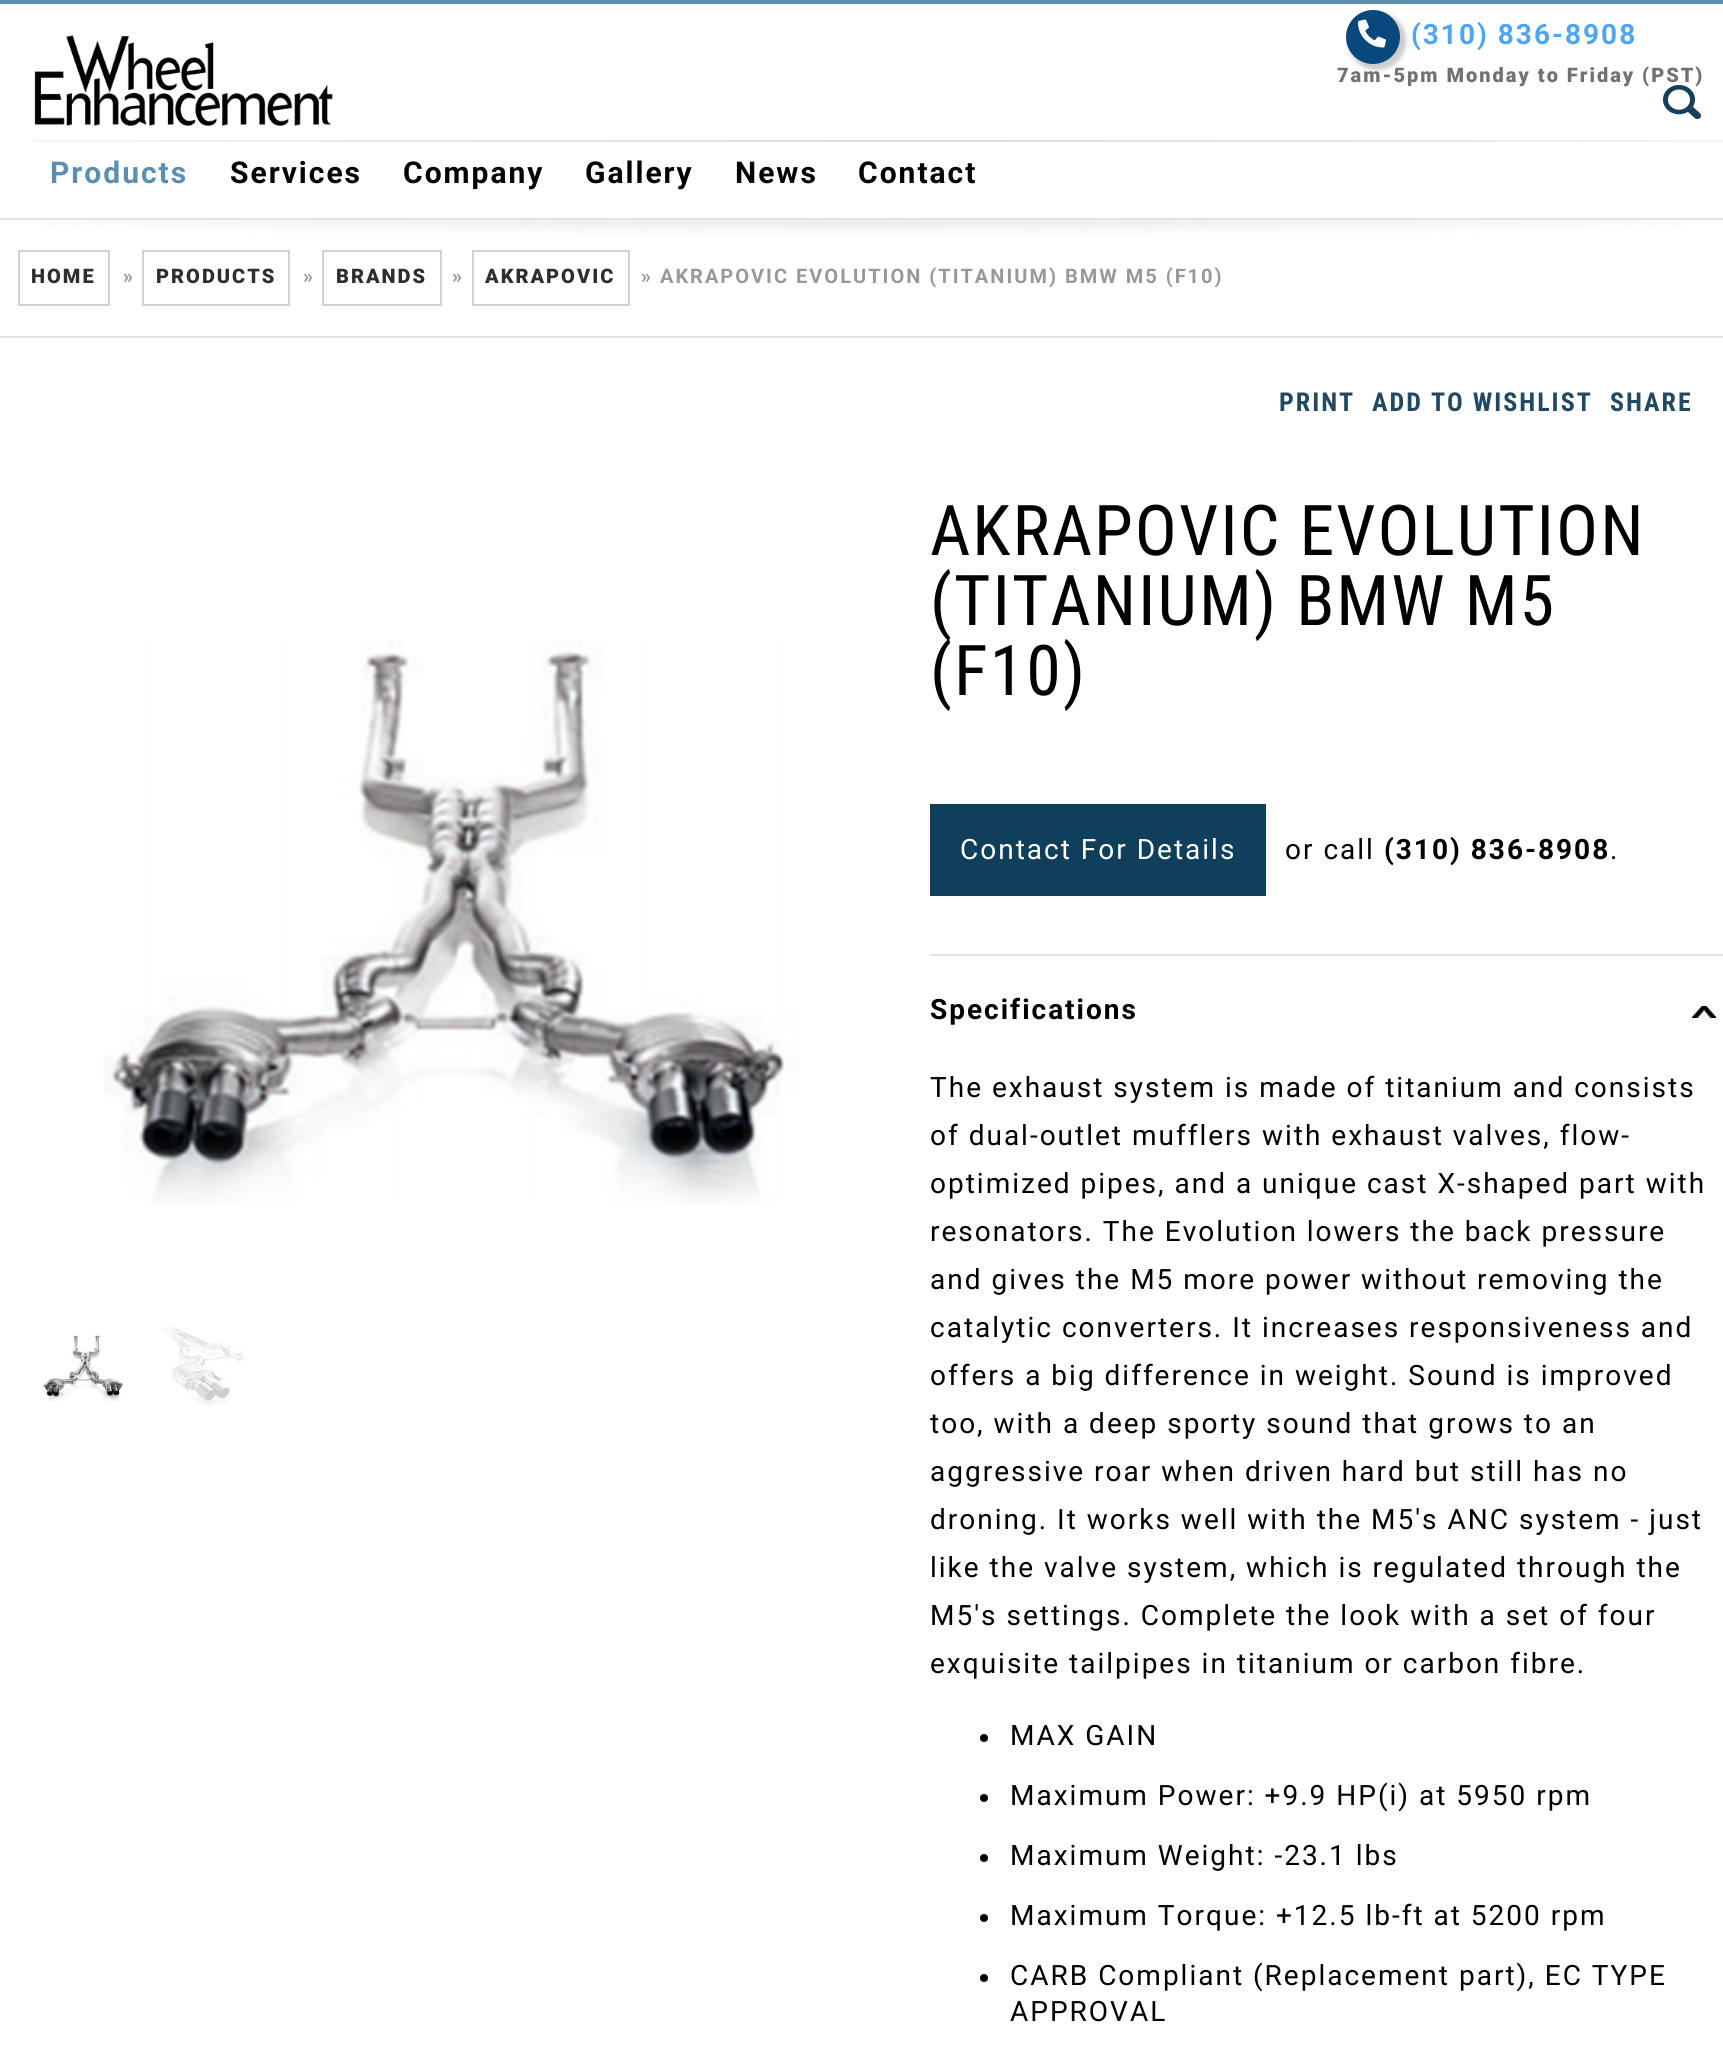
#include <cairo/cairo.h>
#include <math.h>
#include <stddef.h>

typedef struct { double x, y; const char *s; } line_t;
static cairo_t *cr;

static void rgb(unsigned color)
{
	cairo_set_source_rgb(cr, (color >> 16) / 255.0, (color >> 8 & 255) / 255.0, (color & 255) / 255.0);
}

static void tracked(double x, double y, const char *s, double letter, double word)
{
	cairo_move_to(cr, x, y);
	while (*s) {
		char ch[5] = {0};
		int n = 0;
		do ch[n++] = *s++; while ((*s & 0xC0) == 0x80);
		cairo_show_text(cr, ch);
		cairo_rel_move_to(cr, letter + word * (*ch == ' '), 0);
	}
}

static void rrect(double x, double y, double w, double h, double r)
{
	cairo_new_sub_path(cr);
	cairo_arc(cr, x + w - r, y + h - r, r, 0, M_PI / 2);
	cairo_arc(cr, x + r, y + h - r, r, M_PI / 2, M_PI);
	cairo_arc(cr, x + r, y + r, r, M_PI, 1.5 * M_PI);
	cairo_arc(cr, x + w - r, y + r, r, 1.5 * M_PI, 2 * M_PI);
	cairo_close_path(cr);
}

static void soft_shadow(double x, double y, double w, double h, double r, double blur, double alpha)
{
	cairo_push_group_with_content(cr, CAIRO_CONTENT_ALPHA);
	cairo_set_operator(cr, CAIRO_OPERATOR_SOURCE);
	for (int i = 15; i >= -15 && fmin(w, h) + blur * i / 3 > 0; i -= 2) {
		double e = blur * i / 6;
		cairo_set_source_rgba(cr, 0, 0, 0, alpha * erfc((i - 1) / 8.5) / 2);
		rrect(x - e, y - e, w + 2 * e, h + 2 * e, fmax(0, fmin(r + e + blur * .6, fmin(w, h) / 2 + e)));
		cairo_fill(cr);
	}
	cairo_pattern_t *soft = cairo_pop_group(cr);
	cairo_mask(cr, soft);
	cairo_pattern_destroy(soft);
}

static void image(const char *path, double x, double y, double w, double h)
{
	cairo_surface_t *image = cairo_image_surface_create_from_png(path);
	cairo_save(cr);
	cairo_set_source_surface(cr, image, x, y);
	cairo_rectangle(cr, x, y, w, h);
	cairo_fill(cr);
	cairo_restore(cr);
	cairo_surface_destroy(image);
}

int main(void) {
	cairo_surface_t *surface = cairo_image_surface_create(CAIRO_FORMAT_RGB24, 1723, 2071);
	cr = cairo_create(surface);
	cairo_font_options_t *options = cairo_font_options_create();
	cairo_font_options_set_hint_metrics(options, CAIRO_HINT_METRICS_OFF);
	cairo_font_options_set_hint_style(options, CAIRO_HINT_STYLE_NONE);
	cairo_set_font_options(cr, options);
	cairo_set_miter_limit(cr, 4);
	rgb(0xffffff);
	cairo_paint(cr);
	rgb(0x5b8eaf);
	cairo_rectangle(cr, 0, 0, 1723, 4);
	cairo_fill(cr);
	rgb(0xe2e2e2);
	cairo_rectangle(cr, 0, 218, 1723, 2);
	cairo_fill(cr);
	image("img/1.png", 34, 35, 299, 91);
	rgb(0x000000);
	soft_shadow(1348, 12, 58, 58, 29, 2, 0.2);
	rgb(0x08487d);
	cairo_arc(cr, 1373, 37, 27, 0, 2 * M_PI);
	cairo_fill(cr);
	image("img/2.png", 1358, 19, 28, 29);
	image("img/3.png", 34, 140, 1689, 2);
	rgb(0xe2e2e2);
	cairo_rectangle(cr, 0, 336, 1723, 2);
	cairo_fill(cr);
	image("img/5.png", 44, 220, 1640, 14);
	cairo_rectangle(cr, 19, 251, 90, 54);
	rgb(0xd1d1d1);
	cairo_stroke(cr);
	cairo_rectangle(cr, 143, 251, 146, 54);
	cairo_stroke(cr);
	cairo_rectangle(cr, 323, 251, 118, 54);
	cairo_stroke(cr);
	cairo_rectangle(cr, 473, 251, 156, 54);
	cairo_stroke(cr);
	image("img/6.png", 103, 640, 697, 564);
	image("img/7.png", 42, 1334, 83, 68);
	image("img/8.png", 161, 1325, 85, 81);
	rgb(0x0f3f5b);
	cairo_rectangle(cr, 930, 804, 336, 92);
	cairo_fill(cr);
	rgb(0xe2e2e2);
	cairo_rectangle(cr, 930, 954, 793, 2);
	cairo_fill(cr);
	image("img/9.png", 1692, 1006, 24, 12);
	rgb(0x000000);
	cairo_arc(cr, 984, 1738, 4, 0, 2 * M_PI);
	cairo_fill(cr);
	cairo_arc(cr, 984, 1798, 4, 0, 2 * M_PI);
	cairo_fill(cr);
	cairo_arc(cr, 984, 1858, 4, 0, 2 * M_PI);
	cairo_fill(cr);
	cairo_arc(cr, 984, 1918, 4, 0, 2 * M_PI);
	cairo_fill(cr);
	cairo_arc(cr, 984, 1978, 4, 0, 2 * M_PI);
	cairo_fill(cr);
	cairo_select_font_face(cr, "Roboto", CAIRO_FONT_SLANT_NORMAL, CAIRO_FONT_WEIGHT_BOLD);
	cairo_set_font_size(cr, 28);
	rgb(0x4ea5f1);
	tracked(1411, 44, "(310) 836-8908", 2, 0);
	cairo_select_font_face(cr, "Roboto Black", CAIRO_FONT_SLANT_NORMAL, CAIRO_FONT_WEIGHT_NORMAL);
	cairo_set_font_size(cr, 20);
	rgb(0x717171);
	tracked(1337, 82, "7am-5pm Monday to Friday (PST)", 2, 0);
	image("img/4.png", 1663, 85, 38, 34);
	cairo_select_font_face(cr, "Roboto", CAIRO_FONT_SLANT_NORMAL, CAIRO_FONT_WEIGHT_BOLD);
	cairo_set_font_size(cr, 30);
	rgb(0x5b8eaf);
	tracked(50, 183, "Products", 2, 0);
	rgb(0x000000);
	{
		static const line_t items[] = {
			{230, 183, "Services"},
			{403, 183, "Company"},
			{585, 183, "Gallery"},
			{735, 183, "News"},
			{858, 183, "Contact"},
		};
		for (size_t i = 0; i < sizeof items / sizeof *items; i++) {
			tracked(items[i].x, items[i].y, items[i].s, 2, 0);
		}
	}
	cairo_select_font_face(cr, "Roboto Black", CAIRO_FONT_SLANT_NORMAL, CAIRO_FONT_WEIGHT_NORMAL);
	cairo_set_font_size(cr, 20);
	rgb(0x2e2e2e);
	tracked(31, 283, "HOME", 2, 0);
	cairo_select_font_face(cr, "Roboto", CAIRO_FONT_SLANT_NORMAL, CAIRO_FONT_WEIGHT_BOLD);
	rgb(0x989898);
	tracked(123, 283, "»", 2, 0);
	cairo_select_font_face(cr, "Roboto Black", CAIRO_FONT_SLANT_NORMAL, CAIRO_FONT_WEIGHT_NORMAL);
	rgb(0x2e2e2e);
	tracked(156, 283, "PRODUCTS", 2, 0);
	cairo_select_font_face(cr, "Roboto", CAIRO_FONT_SLANT_NORMAL, CAIRO_FONT_WEIGHT_BOLD);
	rgb(0x989898);
	tracked(303, 283, "»", 2, 0);
	cairo_select_font_face(cr, "Roboto Black", CAIRO_FONT_SLANT_NORMAL, CAIRO_FONT_WEIGHT_NORMAL);
	rgb(0x2e2e2e);
	tracked(336, 283, "BRANDS", 2, 0);
	cairo_select_font_face(cr, "Roboto", CAIRO_FONT_SLANT_NORMAL, CAIRO_FONT_WEIGHT_BOLD);
	rgb(0x989898);
	tracked(452, 283, "»", 2, 0);
	cairo_select_font_face(cr, "Roboto Black", CAIRO_FONT_SLANT_NORMAL, CAIRO_FONT_WEIGHT_NORMAL);
	rgb(0x2e2e2e);
	tracked(485, 283, "AKRAPOVIC", 2, 0);
	cairo_select_font_face(cr, "Roboto", CAIRO_FONT_SLANT_NORMAL, CAIRO_FONT_WEIGHT_BOLD);
	rgb(0x989898);
	tracked(641, 283, "» AKRAPOVIC EVOLUTION (TITANIUM) BMW M5 (F10)", 2, 0);
	cairo_select_font_face(cr, "Roboto Condensed", CAIRO_FONT_SLANT_NORMAL, CAIRO_FONT_WEIGHT_BOLD);
	cairo_set_font_size(cr, 26);
	rgb(0x224962);
	{
		static const line_t items[] = {
			{1279, 411, "PRINT"},
			{1372, 411, "ADD TO WISHLIST"},
			{1610, 411, "SHARE"},
		};
		for (size_t i = 0; i < sizeof items / sizeof *items; i++) {
			tracked(items[i].x, items[i].y, items[i].s, 2, 0);
		}
	}
	cairo_select_font_face(cr, "Roboto Condensed", CAIRO_FONT_SLANT_NORMAL, CAIRO_FONT_WEIGHT_NORMAL);
	cairo_set_font_size(cr, 70);
	rgb(0x000000);
	{
		static const line_t items[] = {
			{930, 555, "AKRAPOVIC EVOLUTION"},
			{930, 625, "(TITANIUM) BMW M5"},
			{930, 695, "(F10)"},
		};
		for (size_t i = 0; i < sizeof items / sizeof *items; i++) {
			tracked(items[i].x, items[i].y, items[i].s, 2, 0);
		}
	}
	cairo_select_font_face(cr, "Roboto", CAIRO_FONT_SLANT_NORMAL, CAIRO_FONT_WEIGHT_NORMAL);
	cairo_set_font_size(cr, 28);
	rgb(0xffffff);
	tracked(960, 859, "Contact For Details", 2, 0);
	rgb(0x000000);
	tracked(1285, 859, "or call", 2, 0);
	cairo_select_font_face(cr, "Roboto", CAIRO_FONT_SLANT_NORMAL, CAIRO_FONT_WEIGHT_BOLD);
	tracked(1384, 859, "(310) 836-8908", 2, 0);
	cairo_select_font_face(cr, "Roboto", CAIRO_FONT_SLANT_NORMAL, CAIRO_FONT_WEIGHT_NORMAL);
	tracked(1610, 859, ".", 2, 0);
	cairo_select_font_face(cr, "Roboto", CAIRO_FONT_SLANT_NORMAL, CAIRO_FONT_WEIGHT_BOLD);
	tracked(930, 1019, "Specifications", 2, 0);
	cairo_select_font_face(cr, "Roboto", CAIRO_FONT_SLANT_NORMAL, CAIRO_FONT_WEIGHT_NORMAL);
	{
		static const line_t items[] = {
			{930, 1097, "The exhaust system is made of titanium and consists"},
			{930, 1145, "of dual-outlet mufflers with exhaust valves, flow-"},
			{930, 1193, "optimized pipes, and a unique cast X-shaped part with"},
			{930, 1241, "resonators. The Evolution lowers the back pressure"},
			{930, 1289, "and gives the M5 more power without removing the"},
			{930, 1337, "catalytic converters. It increases responsiveness and"},
			{930, 1385, "offers a big difference in weight. Sound is improved"},
			{930, 1433, "too, with a deep sporty sound that grows to an"},
			{930, 1481, "aggressive roar when driven hard but still has no"},
			{930, 1529, "droning. It works well with the M5's ANC system - just"},
			{930, 1577, "like the valve system, which is regulated through the"},
			{930, 1625, "M5's settings. Complete the look with a set of four"},
			{930, 1673, "exquisite tailpipes in titanium or carbon fibre."},
			{1010, 1745, "MAX GAIN"},
			{1010, 1805, "Maximum Power: +9.9 HP(i) at 5950 rpm"},
			{1010, 1865, "Maximum Weight: -23.1 lbs"},
			{1010, 1925, "Maximum Torque: +12.5 lb-ft at 5200 rpm"},
			{1010, 1985, "CARB Compliant (Replacement part), EC TYPE"},
			{1010, 2021, "APPROVAL"},
		};
		for (size_t i = 0; i < sizeof items / sizeof *items; i++) {
			tracked(items[i].x, items[i].y, items[i].s, 2, 0);
		}
	}
	cairo_surface_write_to_png(surface, "page.png");
	cairo_font_options_destroy(options);
	cairo_destroy(cr);
	cairo_surface_destroy(surface);
	return 0;
}
